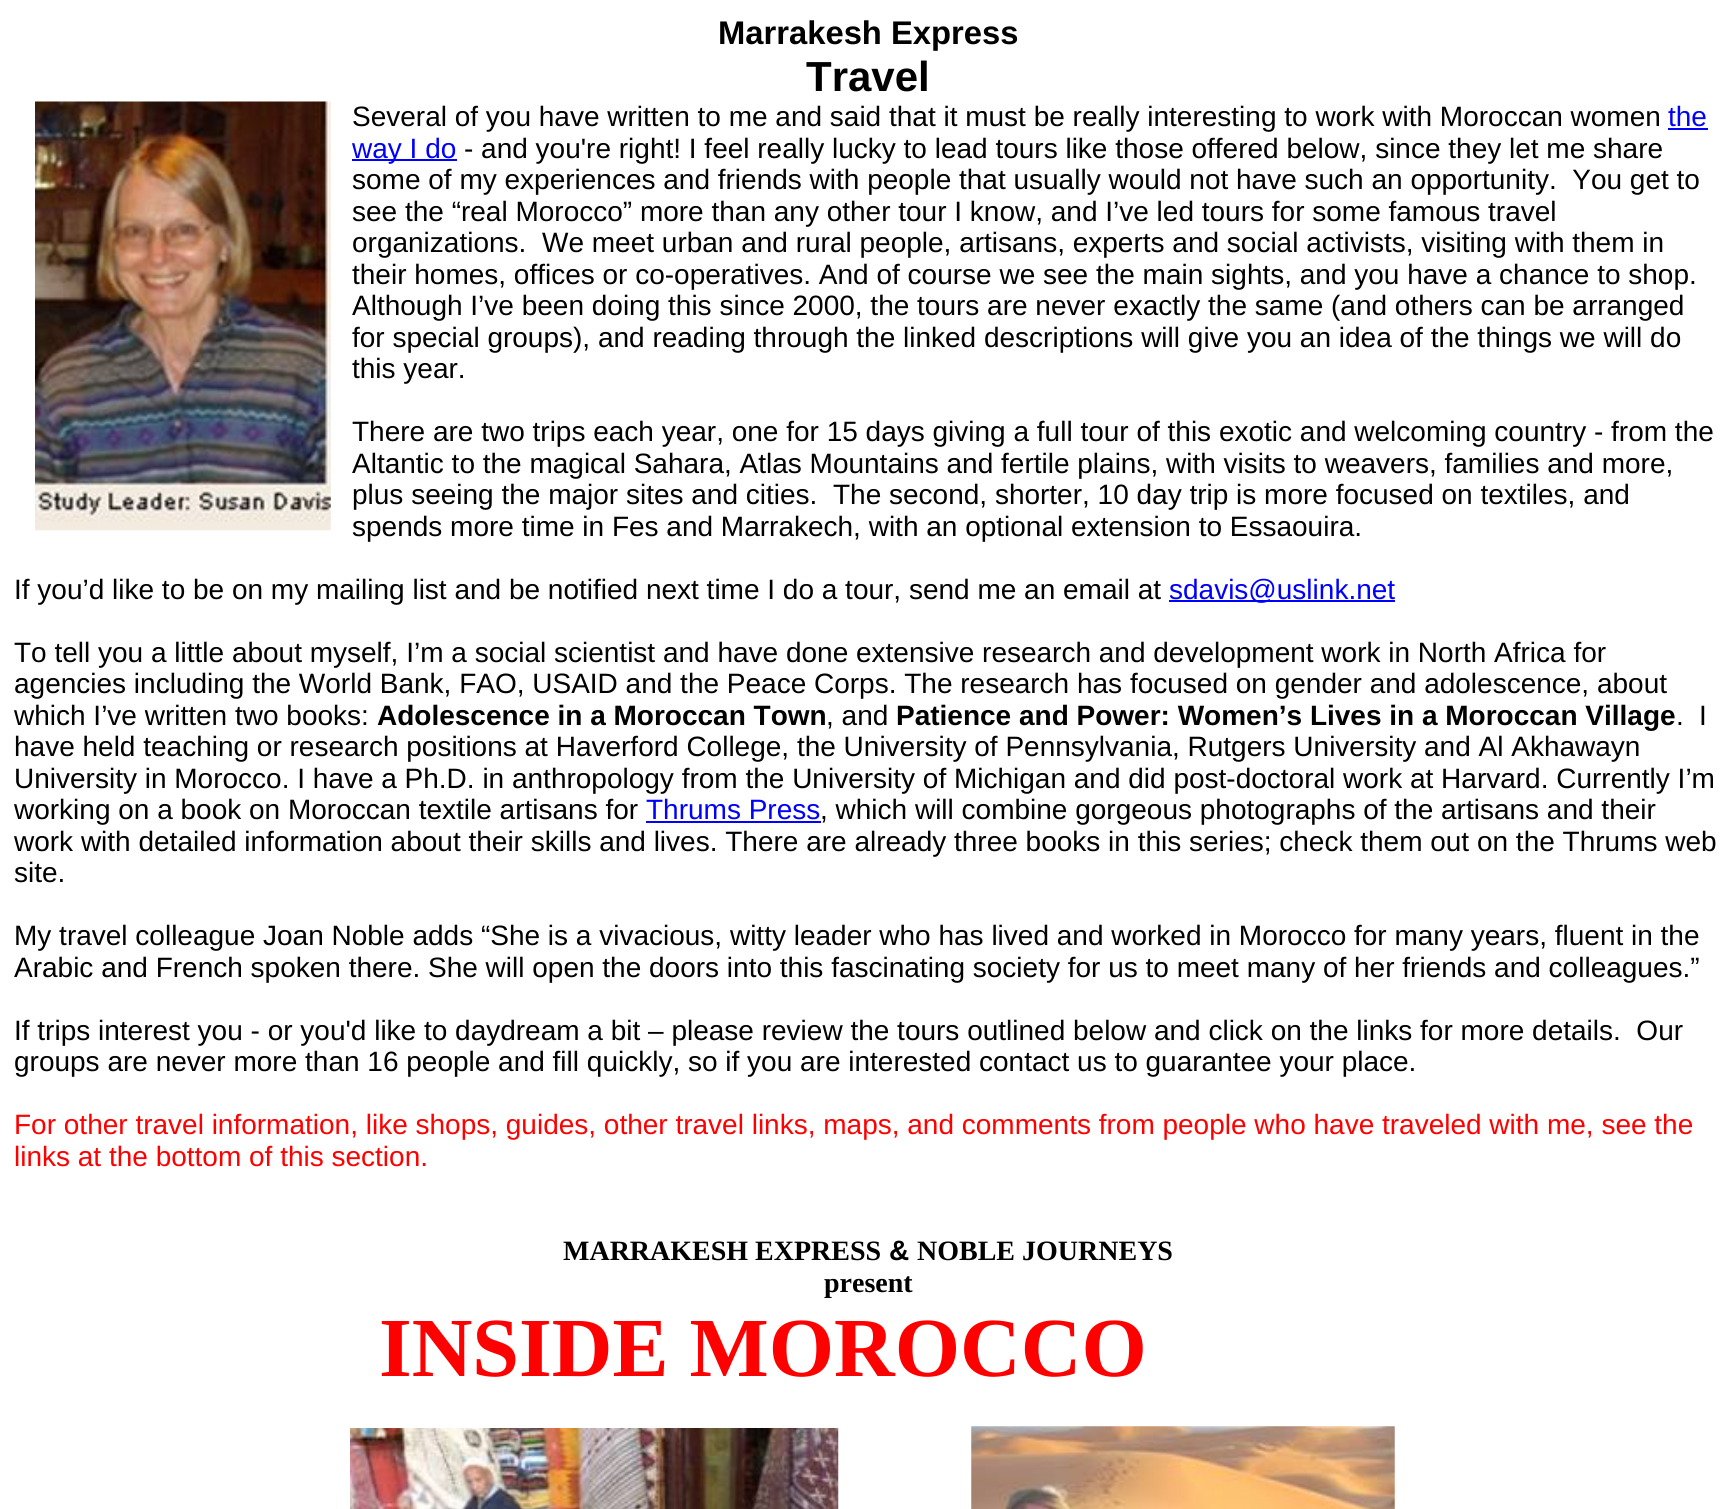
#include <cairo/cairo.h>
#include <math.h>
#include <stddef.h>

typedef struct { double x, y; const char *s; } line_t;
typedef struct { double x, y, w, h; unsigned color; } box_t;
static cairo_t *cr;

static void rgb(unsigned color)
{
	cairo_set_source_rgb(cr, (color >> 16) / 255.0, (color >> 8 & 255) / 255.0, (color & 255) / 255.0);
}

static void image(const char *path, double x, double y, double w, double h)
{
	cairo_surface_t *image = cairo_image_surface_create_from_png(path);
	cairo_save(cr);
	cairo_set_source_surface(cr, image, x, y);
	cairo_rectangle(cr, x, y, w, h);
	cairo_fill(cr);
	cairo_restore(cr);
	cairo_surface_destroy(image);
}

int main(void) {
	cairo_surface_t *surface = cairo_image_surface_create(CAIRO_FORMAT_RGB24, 1735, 1509);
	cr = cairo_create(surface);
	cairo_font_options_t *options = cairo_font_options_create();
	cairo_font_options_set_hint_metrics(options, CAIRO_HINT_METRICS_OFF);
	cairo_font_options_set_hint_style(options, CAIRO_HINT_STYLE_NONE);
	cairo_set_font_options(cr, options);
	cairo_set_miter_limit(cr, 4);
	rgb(0xffffff);
	cairo_paint(cr);
	image("img/1.png", 35, 101, 296, 430);
	{
		static const box_t items[] = {
			{1668, 128, 40, 2, 0x0000ff},
			{352, 159, 105, 2, 0x0000ff},
			{1169, 600, 226, 2, 0x0000ff},
			{646, 821, 175, 2, 0x0000ff},
		};
		for (size_t i = 0; i < sizeof items / sizeof *items; i++) {
			rgb(items[i].color);
			cairo_rectangle(cr, items[i].x, items[i].y, items[i].w, items[i].h);
			cairo_fill(cr);
		}
	}
	image("img/2.png", 350, 1428, 489, 81);
	image("img/3.png", 971, 1426, 424, 83);
	cairo_select_font_face(cr, "Liberation Sans", CAIRO_FONT_SLANT_NORMAL, CAIRO_FONT_WEIGHT_BOLD);
	cairo_set_font_size(cr, 32.75);
	rgb(0x000000);
	cairo_move_to(cr, 718, 44);
	cairo_show_text(cr, "Marrakesh Express");
	cairo_set_font_size(cr, 42);
	cairo_move_to(cr, 806, 91);
	cairo_show_text(cr, "Travel");
	cairo_select_font_face(cr, "Liberation Sans", CAIRO_FONT_SLANT_NORMAL, CAIRO_FONT_WEIGHT_NORMAL);
	cairo_set_font_size(cr, 28);
	cairo_move_to(cr, 352, 126);
	cairo_show_text(cr, "Several of you have written to me and said that it must be really interesting to work with Moroccan women");
	rgb(0x0000ff);
	cairo_move_to(cr, 1668, 126);
	cairo_show_text(cr, "the");
	cairo_move_to(cr, 352, 158);
	cairo_show_text(cr, "way I do");
	rgb(0x000000);
	{
		static const line_t items[] = {
			{464, 158, "- and you're right! I feel really lucky to lead tours like those offered below, since they let me share"},
			{352, 189, "some of my experiences and friends with people that usually would not have such an opportunity.  You get to"},
			{352, 221, "see the “real Morocco” more than any other tour I know, and I’ve led tours for some famous travel"},
			{352, 252, "organizations."},
			{542, 252, "We meet urban and rural people, artisans, experts and social activists, visiting with them in"},
			{352, 284, "their homes, offices or co-operatives. And of course we see the main sights, and you have a chance to shop."},
			{352, 315, "Although I’ve been doing this since 2000, the tours are never exactly the same (and others can be arranged"},
			{352, 347, "for special groups), and reading through the linked descriptions will give you an idea of the things we will do"},
			{352, 378, "this year."},
			{352, 441, "There are two trips each year, one for 15 days giving a full tour of this exotic and welcoming country - from the"},
			{352, 473, "Altantic to the magical Sahara, Atlas Mountains and fertile plains, with visits to weavers, families and more,"},
			{352, 504, "plus seeing the major sites and cities."},
			{833, 504, "The second, shorter, 10 day trip is more focused on textiles, and"},
			{352, 536, "spends more time in Fes and Marrakech, with an optional extension to Essaouira."},
			{14, 599, "If you’d like to be on my mailing list and be notified next time I do a tour, send me an email at"},
		};
		for (size_t i = 0; i < sizeof items / sizeof *items; i++) {
			cairo_move_to(cr, items[i].x, items[i].y);
			cairo_show_text(cr, items[i].s);
		}
	}
	rgb(0x0000ff);
	cairo_move_to(cr, 1169, 599);
	cairo_show_text(cr, "sdavis@uslink.net");
	rgb(0x000000);
	{
		static const line_t items[] = {
			{14, 662, "To tell you a little about myself, I’m a social scientist and have done extensive research and development work in North Africa for"},
			{14, 693, "agencies including the World Bank, FAO, USAID and the Peace Corps. The research has focused on gender and adolescence, about"},
			{14, 725, "which I’ve written two books:"},
		};
		for (size_t i = 0; i < sizeof items / sizeof *items; i++) {
			cairo_move_to(cr, items[i].x, items[i].y);
			cairo_show_text(cr, items[i].s);
		}
	}
	cairo_select_font_face(cr, "Liberation Sans", CAIRO_FONT_SLANT_NORMAL, CAIRO_FONT_WEIGHT_BOLD);
	cairo_move_to(cr, 377, 725);
	cairo_show_text(cr, "Adolescence in a Moroccan Town");
	cairo_select_font_face(cr, "Liberation Sans", CAIRO_FONT_SLANT_NORMAL, CAIRO_FONT_WEIGHT_NORMAL);
	cairo_move_to(cr, 826, 725);
	cairo_show_text(cr, ", and");
	cairo_select_font_face(cr, "Liberation Sans", CAIRO_FONT_SLANT_NORMAL, CAIRO_FONT_WEIGHT_BOLD);
	cairo_move_to(cr, 896, 725);
	cairo_show_text(cr, "Patience and Power: Women’s Lives in a Moroccan Village");
	cairo_select_font_face(cr, "Liberation Sans", CAIRO_FONT_SLANT_NORMAL, CAIRO_FONT_WEIGHT_NORMAL);
	{
		static const line_t items[] = {
			{1676, 725, "."},
			{1699, 725, "I"},
			{14, 756, "have held teaching or research positions at Haverford College, the University of Pennsylvania, Rutgers University and Al Akhawayn"},
			{14, 788, "University in Morocco. I have a Ph.D. in anthropology from the University of Michigan and did post-doctoral work at Harvard. Currently I’m"},
			{14, 819, "working on a book on Moroccan textile artisans for"},
		};
		for (size_t i = 0; i < sizeof items / sizeof *items; i++) {
			cairo_move_to(cr, items[i].x, items[i].y);
			cairo_show_text(cr, items[i].s);
		}
	}
	rgb(0x0000ff);
	cairo_move_to(cr, 646, 819);
	cairo_show_text(cr, "Thrums Press");
	rgb(0x000000);
	{
		static const line_t items[] = {
			{820, 819, ", which will combine gorgeous photographs of the artisans and their"},
			{14, 851, "work with detailed information about their skills and lives. There are already three books in this series; check them out on the Thrums web"},
			{14, 882, "site."},
			{14, 945, "My travel colleague Joan Noble adds “She is a vivacious, witty leader who has lived and worked in Morocco for many years, fluent in the"},
			{14, 977, "Arabic and French spoken there. She will open the doors into this fascinating society for us to meet many of her friends and colleagues.”"},
			{14, 1040, "If trips interest you - or you'd like to daydream a bit – please review the tours outlined below and click on the links for more details.  Our"},
			{14, 1071, "groups are never more than 16 people and fill quickly, so if you are interested contact us to guarantee your place."},
		};
		for (size_t i = 0; i < sizeof items / sizeof *items; i++) {
			cairo_move_to(cr, items[i].x, items[i].y);
			cairo_show_text(cr, items[i].s);
		}
	}
	rgb(0xff0000);
	cairo_move_to(cr, 14, 1134);
	cairo_show_text(cr, "For other travel information, like shops, guides, other travel links, maps, and comments from people who have traveled with me, see the");
	cairo_move_to(cr, 14, 1166);
	cairo_show_text(cr, "links at the bottom of this section.");
	cairo_select_font_face(cr, "Liberation Serif", CAIRO_FONT_SLANT_NORMAL, CAIRO_FONT_WEIGHT_BOLD);
	rgb(0x000000);
	cairo_move_to(cr, 563, 1260);
	cairo_show_text(cr, "MARRAKESH EXPRESS");
	cairo_select_font_face(cr, "Liberation Sans", CAIRO_FONT_SLANT_NORMAL, CAIRO_FONT_WEIGHT_BOLD);
	cairo_move_to(cr, 889, 1260);
	cairo_show_text(cr, "&");
	cairo_select_font_face(cr, "Liberation Serif", CAIRO_FONT_SLANT_NORMAL, CAIRO_FONT_WEIGHT_BOLD);
	cairo_move_to(cr, 917, 1260);
	cairo_show_text(cr, "NOBLE JOURNEYS");
	cairo_move_to(cr, 824, 1292);
	cairo_show_text(cr, "present");
	cairo_set_font_size(cr, 84);
	rgb(0xff0000);
	cairo_move_to(cr, 379, 1376);
	cairo_show_text(cr, "INSIDE MOROCCO");
	cairo_surface_write_to_png(surface, "page.png");
	cairo_font_options_destroy(options);
	cairo_destroy(cr);
	cairo_surface_destroy(surface);
	return 0;
}
